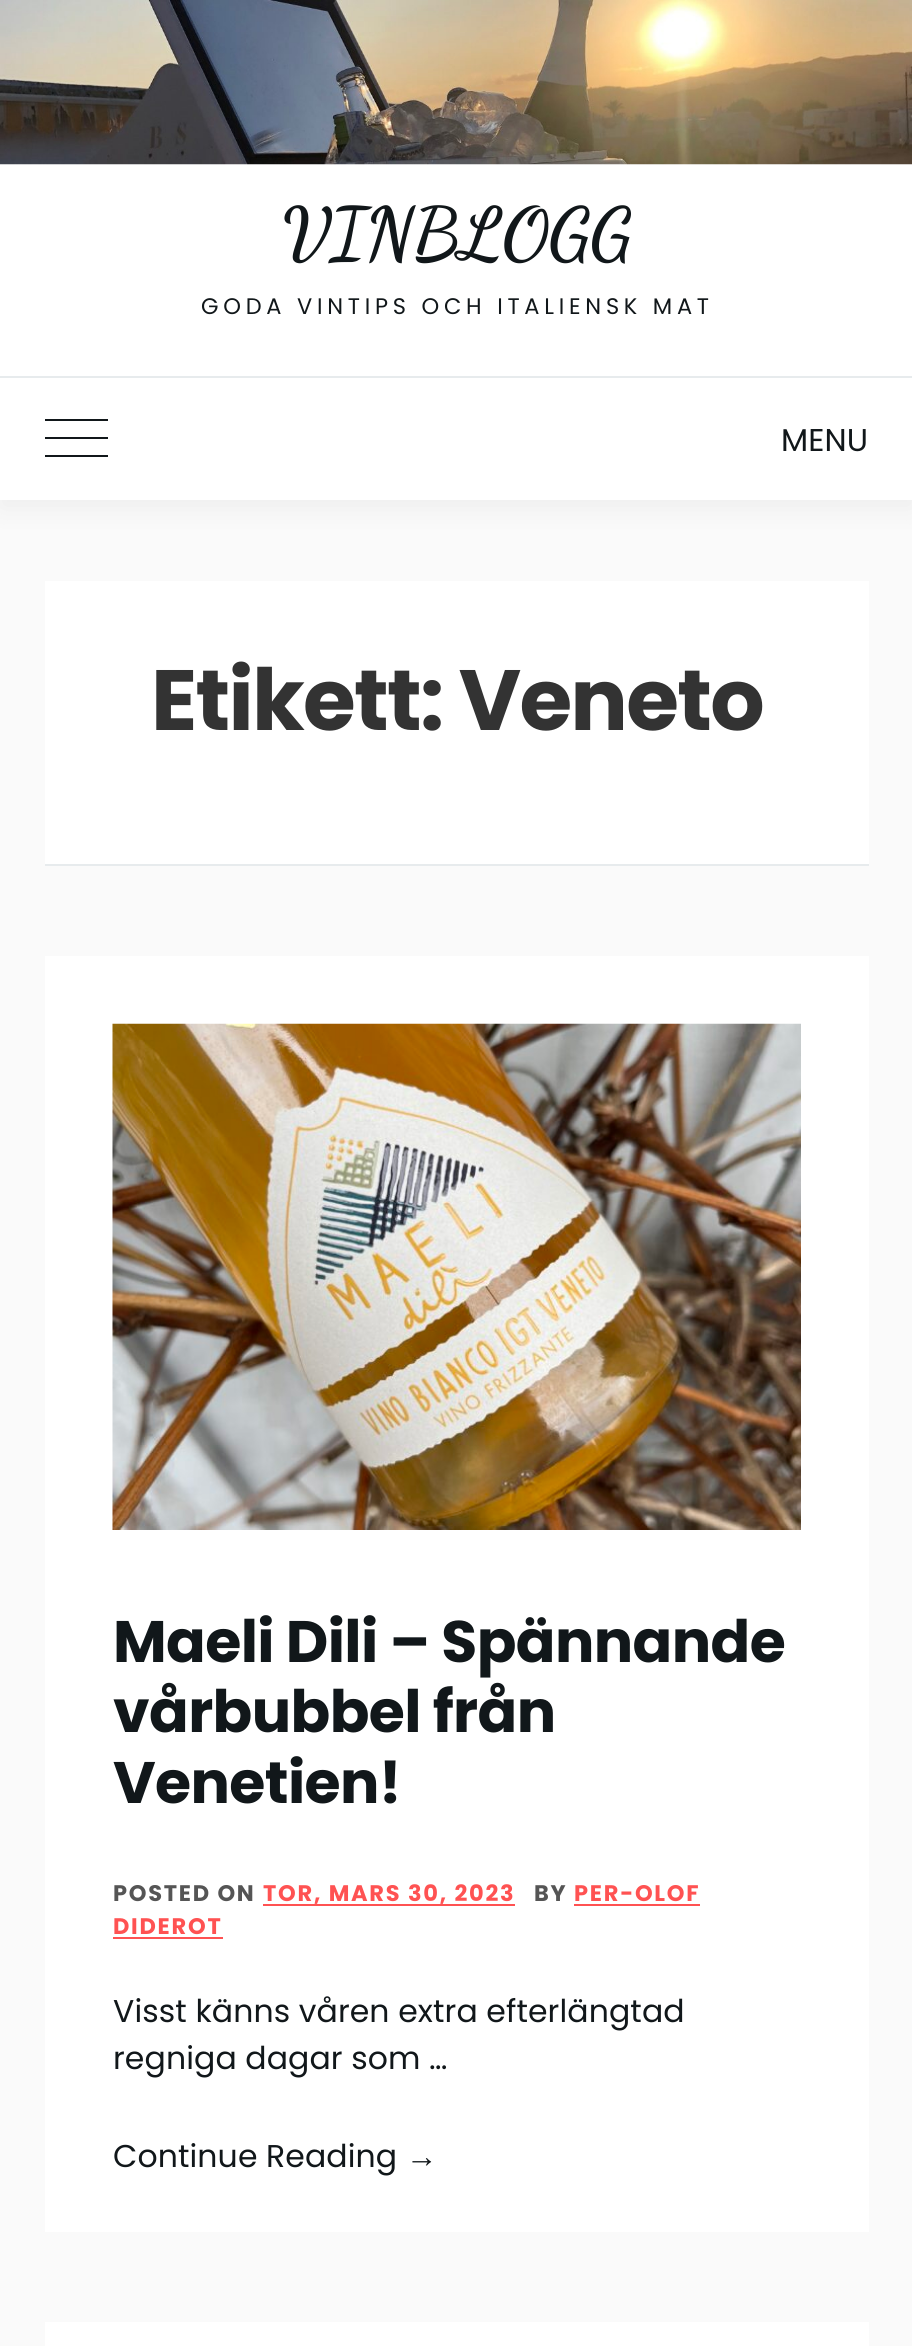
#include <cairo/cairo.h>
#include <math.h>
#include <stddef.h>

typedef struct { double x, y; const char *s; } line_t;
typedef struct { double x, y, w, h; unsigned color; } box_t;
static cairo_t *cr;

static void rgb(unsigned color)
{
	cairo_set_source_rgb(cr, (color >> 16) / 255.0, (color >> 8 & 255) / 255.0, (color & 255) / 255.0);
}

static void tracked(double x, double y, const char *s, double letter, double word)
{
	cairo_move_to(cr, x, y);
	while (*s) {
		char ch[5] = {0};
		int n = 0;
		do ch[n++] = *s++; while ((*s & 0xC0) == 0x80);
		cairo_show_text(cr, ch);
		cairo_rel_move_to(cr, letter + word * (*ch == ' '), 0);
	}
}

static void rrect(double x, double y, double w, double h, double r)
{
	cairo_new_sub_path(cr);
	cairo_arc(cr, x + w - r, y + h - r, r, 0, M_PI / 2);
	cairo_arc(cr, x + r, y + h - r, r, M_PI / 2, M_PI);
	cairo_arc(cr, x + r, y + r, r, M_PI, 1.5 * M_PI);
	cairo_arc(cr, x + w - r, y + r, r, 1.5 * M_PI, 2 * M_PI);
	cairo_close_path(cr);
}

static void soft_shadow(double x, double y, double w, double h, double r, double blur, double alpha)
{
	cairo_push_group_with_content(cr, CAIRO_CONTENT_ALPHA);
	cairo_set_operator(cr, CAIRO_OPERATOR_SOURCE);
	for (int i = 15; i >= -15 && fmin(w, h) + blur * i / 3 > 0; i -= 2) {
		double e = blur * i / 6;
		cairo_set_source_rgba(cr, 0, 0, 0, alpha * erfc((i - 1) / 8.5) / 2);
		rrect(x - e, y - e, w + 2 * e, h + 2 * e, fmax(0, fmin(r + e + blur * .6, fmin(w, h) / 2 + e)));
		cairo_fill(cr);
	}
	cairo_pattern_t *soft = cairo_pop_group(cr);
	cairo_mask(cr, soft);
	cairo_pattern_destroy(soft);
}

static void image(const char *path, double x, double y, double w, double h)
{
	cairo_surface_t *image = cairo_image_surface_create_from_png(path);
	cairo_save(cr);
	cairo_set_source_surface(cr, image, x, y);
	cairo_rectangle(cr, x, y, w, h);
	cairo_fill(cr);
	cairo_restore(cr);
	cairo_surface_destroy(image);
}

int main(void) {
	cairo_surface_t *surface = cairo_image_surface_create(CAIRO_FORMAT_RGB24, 912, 2346);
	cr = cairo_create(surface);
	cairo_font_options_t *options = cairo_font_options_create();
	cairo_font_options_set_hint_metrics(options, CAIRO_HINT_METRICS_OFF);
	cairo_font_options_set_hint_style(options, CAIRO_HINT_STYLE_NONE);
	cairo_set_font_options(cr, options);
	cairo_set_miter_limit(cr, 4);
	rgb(0xfafafa);
	cairo_paint(cr);
	rgb(0x000000);
	soft_shadow(0, 9, 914, 500, 0, 13.5, 0.05);
	rgb(0xffffff);
	cairo_rectangle(cr, 0, 164, 912, 336);
	cairo_fill(cr);
	image("img/1.png", 0, 0, 912, 165);
	{
		static const box_t items[] = {
			{0, 376, 912, 2, 0xe7ebed},
			{45, 455, 63, 2, 0x11171a},
			{45, 437, 63, 2, 0x11171a},
			{45, 419, 63, 2, 0x11171a},
			{45, 581, 824, 283, 0xffffff},
			{45, 864, 824, 2, 0xe7ebed},
			{45, 956, 824, 1276, 0xffffff},
		};
		for (size_t i = 0; i < sizeof items / sizeof *items; i++) {
			rgb(items[i].color);
			cairo_rectangle(cr, items[i].x, items[i].y, items[i].w, items[i].h);
			cairo_fill(cr);
		}
	}
	image("img/2.png", 112, 1023, 689, 507);
	{
		static const box_t items[] = {
			{263, 1904, 252, 2, 0xff5252},
			{574, 1904, 126, 2, 0xff5252},
			{113, 1937, 110, 2, 0xff5252},
			{45, 2322, 824, 24, 0xffffff},
		};
		for (size_t i = 0; i < sizeof items / sizeof *items; i++) {
			rgb(items[i].color);
			cairo_rectangle(cr, items[i].x, items[i].y, items[i].w, items[i].h);
			cairo_fill(cr);
		}
	}
	cairo_select_font_face(cr, "Dancing Script", CAIRO_FONT_SLANT_NORMAL, CAIRO_FONT_WEIGHT_BOLD);
	cairo_set_font_size(cr, 72);
	rgb(0x11171a);
	tracked(282, 257, "VINBLOGG", -0.75, 0);
	cairo_select_font_face(cr, "Poppins", CAIRO_FONT_SLANT_NORMAL, CAIRO_FONT_WEIGHT_NORMAL);
	cairo_set_font_size(cr, 22.5);
	tracked(201, 314, "GODA VINTIPS OCH ITALIENSK MAT", 4.75, 0);
	cairo_set_font_size(cr, 31.5);
	tracked(781, 451, "MENU", 0.1, 0);
	cairo_select_font_face(cr, "Poppins", CAIRO_FONT_SLANT_NORMAL, CAIRO_FONT_WEIGHT_BOLD);
	cairo_set_font_size(cr, 85.5);
	rgb(0x333333);
	tracked(151, 730, "Etikett: Veneto", -1.75, 0);
	cairo_set_font_size(cr, 58.5);
	rgb(0x11171a);
	{
		static const line_t items[] = {
			{113, 1662, "Maeli Dili – Spännande"},
			{113, 1732, "vårbubbel från"},
			{113, 1803, "Venetien!"},
		};
		for (size_t i = 0; i < sizeof items / sizeof *items; i++) {
			tracked(items[i].x, items[i].y, items[i].s, -0.6, 0);
		}
	}
	cairo_set_font_size(cr, 22.5);
	rgb(0x555555);
	tracked(113, 1901, "POSTED ON", 1.75, 0);
	rgb(0xff5252);
	tracked(263, 1901, "TOR, MARS 30, 2023", 1.75, 0);
	rgb(0x555555);
	tracked(534, 1901, "BY", 1.75, 0);
	rgb(0xff5252);
	tracked(574, 1901, "PER-OLOF", 1.75, 0);
	tracked(113, 1934, "DIDEROT", 1.75, 0);
	cairo_select_font_face(cr, "Poppins", CAIRO_FONT_SLANT_NORMAL, CAIRO_FONT_WEIGHT_NORMAL);
	cairo_set_font_size(cr, 31.5);
	rgb(0x11171a);
	{
		static const line_t items[] = {
			{113, 2022, "Visst känns våren extra efterlängtad"},
			{113, 2069, "regniga dagar som …"},
			{113, 2167, "Continue Reading"},
		};
		for (size_t i = 0; i < sizeof items / sizeof *items; i++) {
			tracked(items[i].x, items[i].y, items[i].s, 0.1, 0);
		}
	}
	cairo_select_font_face(cr, "Liberation Sans", CAIRO_FONT_SLANT_NORMAL, CAIRO_FONT_WEIGHT_NORMAL);
	tracked(406, 2167, "→", 0.1, 0);
	cairo_surface_write_to_png(surface, "page.png");
	cairo_font_options_destroy(options);
	cairo_destroy(cr);
	cairo_surface_destroy(surface);
	return 0;
}
